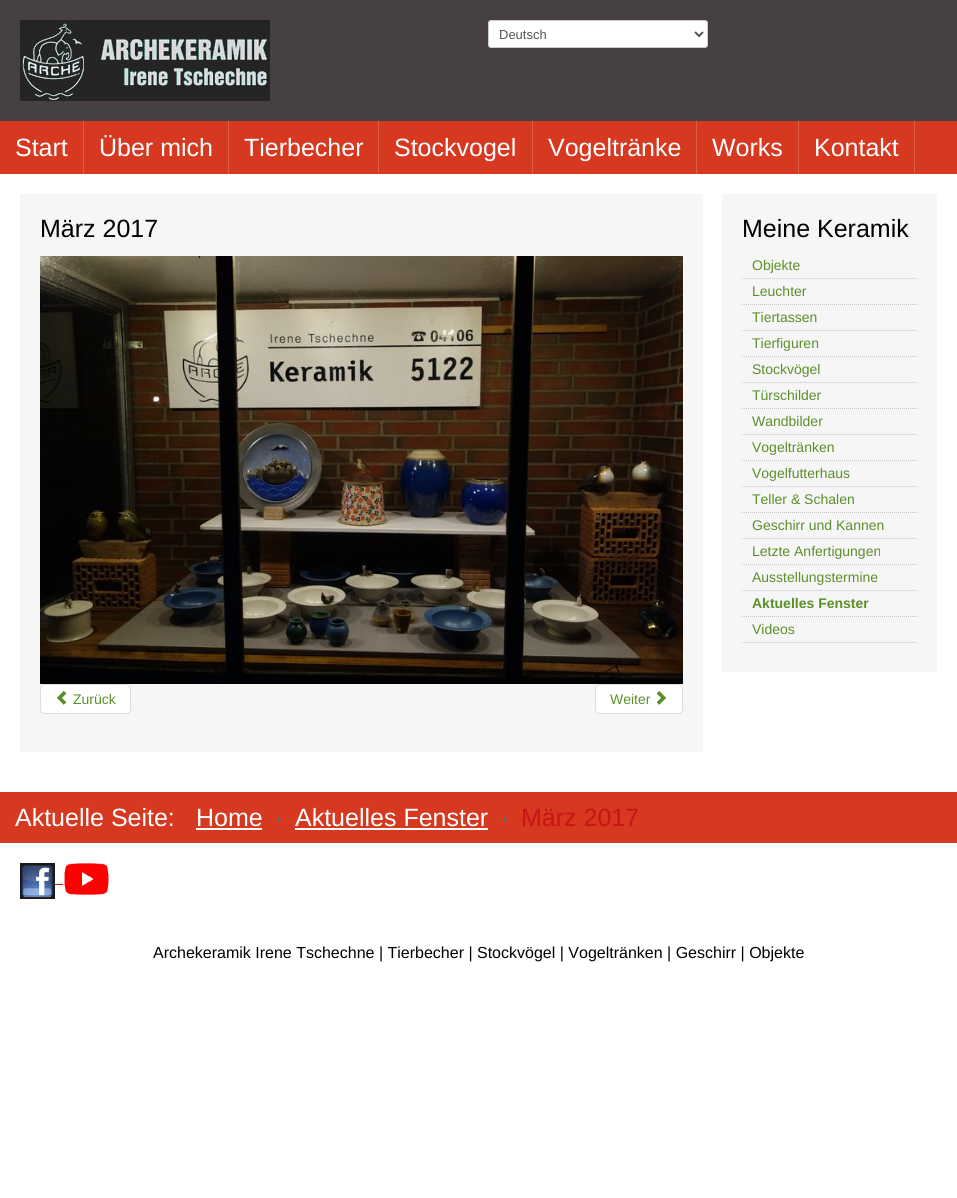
#include <cairo/cairo.h>
#include <math.h>
#include <stddef.h>

typedef struct { double x, y; const char *s; } line_t;
typedef struct { double x, y, w, h; unsigned color; } box_t;
static cairo_t *cr;

static void rgb(unsigned color)
{
	cairo_set_source_rgb(cr, (color >> 16) / 255.0, (color >> 8 & 255) / 255.0, (color & 255) / 255.0);
}

static void rrect(double x, double y, double w, double h, double r)
{
	cairo_new_sub_path(cr);
	cairo_arc(cr, x + w - r, y + h - r, r, 0, M_PI / 2);
	cairo_arc(cr, x + r, y + h - r, r, M_PI / 2, M_PI);
	cairo_arc(cr, x + r, y + r, r, M_PI, 1.5 * M_PI);
	cairo_arc(cr, x + w - r, y + r, r, 1.5 * M_PI, 2 * M_PI);
	cairo_close_path(cr);
}

static void image(const char *path, double x, double y, double w, double h)
{
	cairo_surface_t *image = cairo_image_surface_create_from_png(path);
	cairo_save(cr);
	cairo_set_source_surface(cr, image, x, y);
	cairo_rectangle(cr, x, y, w, h);
	cairo_fill(cr);
	cairo_restore(cr);
	cairo_surface_destroy(image);
}

int main(void) {
	cairo_surface_t *surface = cairo_image_surface_create(CAIRO_FORMAT_RGB24, 957, 1198);
	cr = cairo_create(surface);
	cairo_font_options_t *options = cairo_font_options_create();
	cairo_font_options_set_hint_metrics(options, CAIRO_HINT_METRICS_OFF);
	cairo_font_options_set_hint_style(options, CAIRO_HINT_STYLE_NONE);
	cairo_set_font_options(cr, options);
	cairo_set_miter_limit(cr, 4);
	rgb(0xffffff);
	cairo_paint(cr);
	rgb(0x474040);
	cairo_rectangle(cr, 0, 0, 957, 121);
	cairo_fill(cr);
	image("img/1.png", 20, 20, 250, 81);
	rgb(0xffffff);
	rrect(488.5, 20.5, 219, 27, 2.5);
	cairo_fill_preserve(cr);
	rgb(0xcccccc);
	cairo_set_line_width(cr, 1);
	cairo_stroke(cr);
	cairo_new_path(cr);
	cairo_move_to(cr, 695, 32);
	cairo_line_to(cr, 699, 36);
	cairo_line_to(cr, 703, 32);
	rgb(0x555555);
	cairo_set_line_width(cr, 2);
	cairo_stroke(cr);
	{
		static const box_t items[] = {
			{0, 121, 957, 53, 0xd63820},
			{83, 121, 1, 53, 0xdd5c48},
			{228, 121, 1, 53, 0xdd5c48},
			{378, 121, 1, 53, 0xdd5c48},
			{532, 121, 1, 53, 0xdd5c48},
			{696, 121, 1, 53, 0xdd5c48},
			{798, 121, 1, 53, 0xdd5c48},
			{914, 121, 1, 53, 0xdd5c48},
			{20, 194, 683, 558, 0xf6f6f6},
		};
		for (size_t i = 0; i < sizeof items / sizeof *items; i++) {
			rgb(items[i].color);
			cairo_rectangle(cr, items[i].x, items[i].y, items[i].w, items[i].h);
			cairo_fill(cr);
		}
	}
	image("img/2.png", 40, 256, 643, 428);
	rgb(0xffffff);
	rrect(40.5, 684.5, 90, 29, 4.5);
	cairo_fill_preserve(cr);
	rgb(0xdddddd);
	cairo_set_line_width(cr, 1);
	cairo_stroke(cr);
	image("img/3.png", 56, 691, 11, 14);
	rgb(0xffffff);
	rrect(595.5, 684.5, 87, 29, 4.5);
	cairo_fill_preserve(cr);
	rgb(0xdddddd);
	cairo_stroke(cr);
	image("img/4.png", 656, 691, 11, 14);
	rgb(0xf6f6f6);
	cairo_rectangle(cr, 722, 194, 215, 478);
	cairo_fill(cr);
	cairo_new_path(cr);
	cairo_move_to(cr, 742, 278.5);
	cairo_line_to(cr, 917, 278.5);
	rgb(0xc5c5c5);
	cairo_set_dash(cr, (double[]){1, 1}, 2, 0);
	cairo_stroke(cr);
	cairo_new_path(cr);
	cairo_move_to(cr, 742, 304.5);
	cairo_line_to(cr, 917, 304.5);
	cairo_stroke(cr);
	cairo_new_path(cr);
	cairo_move_to(cr, 742, 330.5);
	cairo_line_to(cr, 917, 330.5);
	cairo_stroke(cr);
	cairo_new_path(cr);
	cairo_move_to(cr, 742, 356.5);
	cairo_line_to(cr, 917, 356.5);
	cairo_stroke(cr);
	cairo_new_path(cr);
	cairo_move_to(cr, 742, 382.5);
	cairo_line_to(cr, 917, 382.5);
	cairo_stroke(cr);
	cairo_new_path(cr);
	cairo_move_to(cr, 742, 408.5);
	cairo_line_to(cr, 917, 408.5);
	cairo_stroke(cr);
	cairo_new_path(cr);
	cairo_move_to(cr, 742, 434.5);
	cairo_line_to(cr, 917, 434.5);
	cairo_stroke(cr);
	cairo_new_path(cr);
	cairo_move_to(cr, 742, 460.5);
	cairo_line_to(cr, 917, 460.5);
	cairo_stroke(cr);
	cairo_new_path(cr);
	cairo_move_to(cr, 742, 486.5);
	cairo_line_to(cr, 917, 486.5);
	cairo_stroke(cr);
	cairo_new_path(cr);
	cairo_move_to(cr, 742, 512.5);
	cairo_line_to(cr, 917, 512.5);
	cairo_stroke(cr);
	cairo_new_path(cr);
	cairo_move_to(cr, 742, 538.5);
	cairo_line_to(cr, 917, 538.5);
	cairo_stroke(cr);
	cairo_new_path(cr);
	cairo_move_to(cr, 742, 564.5);
	cairo_line_to(cr, 917, 564.5);
	cairo_stroke(cr);
	cairo_new_path(cr);
	cairo_move_to(cr, 742, 590.5);
	cairo_line_to(cr, 917, 590.5);
	cairo_stroke(cr);
	cairo_new_path(cr);
	cairo_move_to(cr, 742, 616.5);
	cairo_line_to(cr, 917, 616.5);
	cairo_stroke(cr);
	cairo_new_path(cr);
	cairo_move_to(cr, 742, 642.5);
	cairo_line_to(cr, 917, 642.5);
	cairo_stroke(cr);
	rgb(0xd63820);
	cairo_rectangle(cr, 0, 792, 957, 51);
	cairo_fill(cr);
	rgb(0xffffff);
	cairo_rectangle(cr, 196, 828, 66, 2);
	cairo_fill(cr);
	image("img/5.png", 277, 816, 4, 7);
	cairo_rectangle(cr, 295, 828, 193, 2);
	cairo_fill(cr);
	image("img/5.png", 503, 816, 4, 7);
	image("img/6.png", 20, 863, 35, 36);
	rgb(0xc71414);
	cairo_rectangle(cr, 55, 884, 8, 1);
	cairo_fill(cr);
	image("img/7.png", 64, 863, 45, 32);
	cairo_select_font_face(cr, "Liberation Sans", CAIRO_FONT_SLANT_NORMAL, CAIRO_FONT_WEIGHT_NORMAL);
	cairo_set_font_size(cr, 13);
	rgb(0x555555);
	cairo_move_to(cr, 499, 39);
	cairo_show_text(cr, "Deutsch");
	cairo_set_font_size(cr, 25);
	rgb(0xffffff);
	{
		static const line_t items[] = {
			{15, 156, "Start"},
			{99, 156, "Über mich"},
			{244, 156, "Tierbecher"},
			{394, 156, "Stockvogel"},
			{548, 156, "Vogeltränke"},
			{712, 156, "Works"},
			{814, 156, "Kontakt"},
		};
		for (size_t i = 0; i < sizeof items / sizeof *items; i++) {
			cairo_move_to(cr, items[i].x, items[i].y);
			cairo_show_text(cr, items[i].s);
		}
	}
	rgb(0x000000);
	cairo_move_to(cr, 40, 237);
	cairo_show_text(cr, "März 2017");
	cairo_set_font_size(cr, 14);
	rgb(0x5a8f29);
	cairo_move_to(cr, 73, 704);
	cairo_show_text(cr, "Zurück");
	cairo_move_to(cr, 610, 704);
	cairo_show_text(cr, "Weiter");
	cairo_set_font_size(cr, 25);
	rgb(0x000000);
	cairo_move_to(cr, 742, 237);
	cairo_show_text(cr, "Meine Keramik");
	cairo_set_font_size(cr, 14);
	rgb(0x5a8f29);
	{
		static const line_t items[] = {
			{752, 270, "Objekte"},
			{752, 296, "Leuchter"},
			{752, 322, "Tiertassen"},
			{752, 348, "Tierfiguren"},
			{752, 374, "Stockvögel"},
			{752, 400, "Türschilder"},
			{752, 426, "Wandbilder"},
			{752, 452, "Vogeltränken"},
			{752, 478, "Vogelfutterhaus"},
			{752, 504, "Teller & Schalen"},
			{752, 530, "Geschirr und Kannen"},
			{752, 556, "Letzte Anfertigungen"},
			{752, 582, "Ausstellungstermine"},
		};
		for (size_t i = 0; i < sizeof items / sizeof *items; i++) {
			cairo_move_to(cr, items[i].x, items[i].y);
			cairo_show_text(cr, items[i].s);
		}
	}
	cairo_select_font_face(cr, "Liberation Sans", CAIRO_FONT_SLANT_NORMAL, CAIRO_FONT_WEIGHT_BOLD);
	cairo_move_to(cr, 752, 608);
	cairo_show_text(cr, "Aktuelles Fenster");
	cairo_select_font_face(cr, "Liberation Sans", CAIRO_FONT_SLANT_NORMAL, CAIRO_FONT_WEIGHT_NORMAL);
	cairo_move_to(cr, 752, 634);
	cairo_show_text(cr, "Videos");
	cairo_set_font_size(cr, 25);
	rgb(0xffffff);
	{
		static const line_t items[] = {
			{15, 826, "Aktuelle Seite:"},
			{196, 826, "Home"},
			{295, 826, "Aktuelles Fenster"},
		};
		for (size_t i = 0; i < sizeof items / sizeof *items; i++) {
			cairo_move_to(cr, items[i].x, items[i].y);
			cairo_show_text(cr, items[i].s);
		}
	}
	rgb(0xc71414);
	cairo_move_to(cr, 521, 826);
	cairo_show_text(cr, "März 2017");
	cairo_set_font_size(cr, 16);
	rgb(0x000000);
	cairo_move_to(cr, 153, 958);
	cairo_show_text(cr, "Archekeramik Irene Tschechne | Tierbecher | Stockvögel | Vogeltränken | Geschirr | Objekte");
	cairo_surface_write_to_png(surface, "page.png");
	cairo_font_options_destroy(options);
	cairo_destroy(cr);
	cairo_surface_destroy(surface);
	return 0;
}
